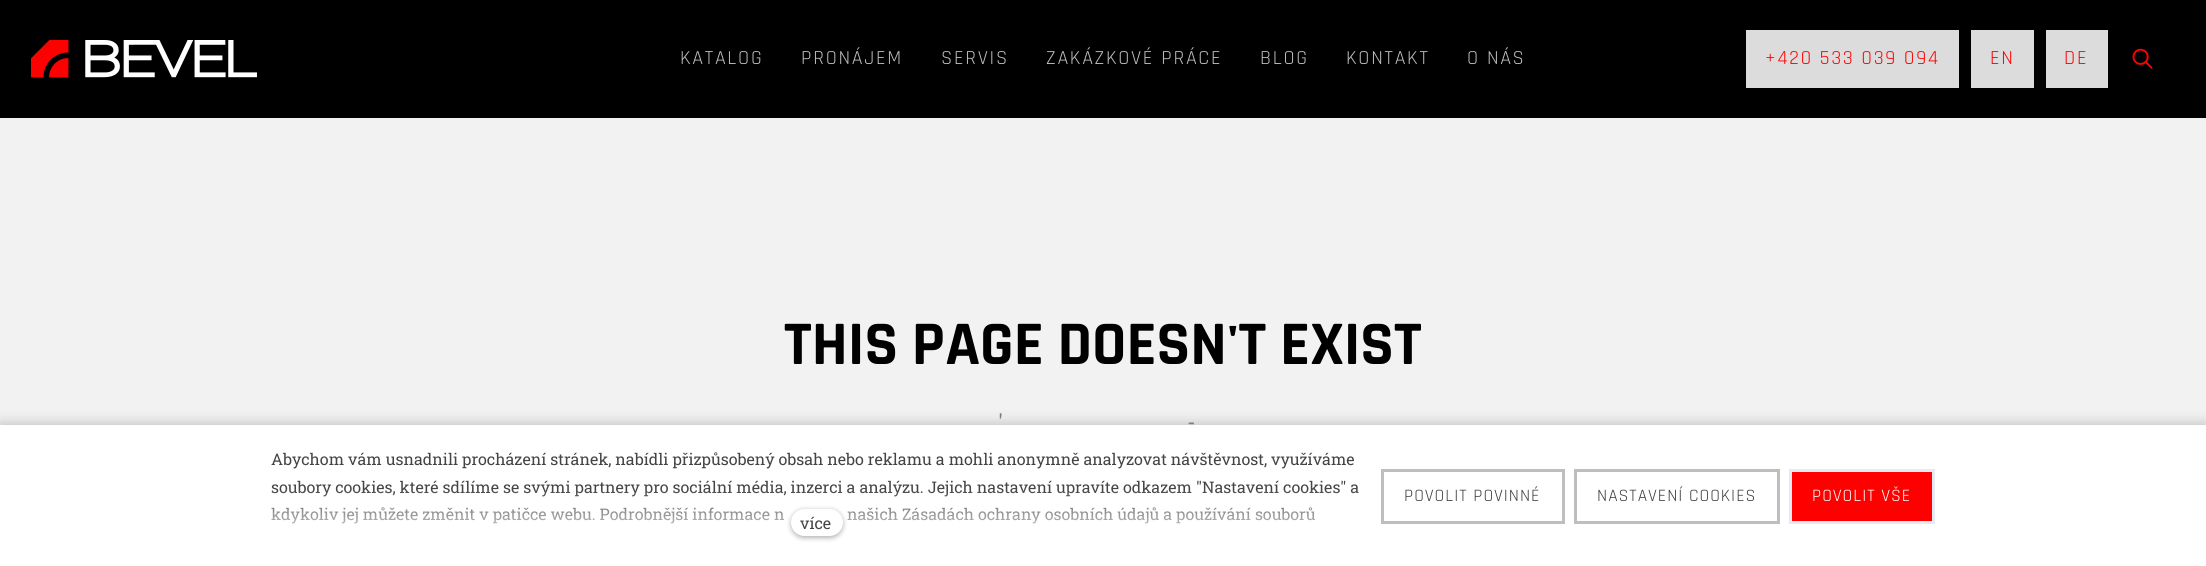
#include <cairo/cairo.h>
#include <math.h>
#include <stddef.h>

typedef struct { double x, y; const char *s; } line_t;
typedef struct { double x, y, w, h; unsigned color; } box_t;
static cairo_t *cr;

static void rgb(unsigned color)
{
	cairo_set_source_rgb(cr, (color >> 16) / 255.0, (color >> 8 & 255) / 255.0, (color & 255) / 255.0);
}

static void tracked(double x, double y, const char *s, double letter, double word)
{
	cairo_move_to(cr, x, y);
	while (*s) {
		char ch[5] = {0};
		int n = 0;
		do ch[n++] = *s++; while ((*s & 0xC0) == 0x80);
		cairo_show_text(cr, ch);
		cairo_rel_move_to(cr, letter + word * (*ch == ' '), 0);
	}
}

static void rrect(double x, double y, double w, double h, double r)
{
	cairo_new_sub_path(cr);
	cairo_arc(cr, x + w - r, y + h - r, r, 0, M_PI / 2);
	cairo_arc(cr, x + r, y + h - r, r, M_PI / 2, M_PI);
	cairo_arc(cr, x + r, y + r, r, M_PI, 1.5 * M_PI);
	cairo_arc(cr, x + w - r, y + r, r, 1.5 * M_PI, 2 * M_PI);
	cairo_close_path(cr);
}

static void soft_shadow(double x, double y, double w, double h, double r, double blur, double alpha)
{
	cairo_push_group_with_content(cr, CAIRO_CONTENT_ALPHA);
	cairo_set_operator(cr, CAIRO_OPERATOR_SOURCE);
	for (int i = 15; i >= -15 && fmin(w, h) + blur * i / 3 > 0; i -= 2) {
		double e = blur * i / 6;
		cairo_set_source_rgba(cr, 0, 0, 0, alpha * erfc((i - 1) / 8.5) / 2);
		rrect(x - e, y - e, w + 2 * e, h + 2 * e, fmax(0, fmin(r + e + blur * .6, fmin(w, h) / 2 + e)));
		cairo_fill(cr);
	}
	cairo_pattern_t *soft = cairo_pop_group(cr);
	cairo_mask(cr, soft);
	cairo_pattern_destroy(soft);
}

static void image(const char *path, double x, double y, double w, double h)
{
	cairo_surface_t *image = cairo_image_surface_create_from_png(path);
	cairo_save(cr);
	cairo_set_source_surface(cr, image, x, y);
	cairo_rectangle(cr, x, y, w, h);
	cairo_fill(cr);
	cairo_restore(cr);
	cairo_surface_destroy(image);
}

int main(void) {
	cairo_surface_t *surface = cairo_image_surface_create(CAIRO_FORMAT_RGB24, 2206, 566);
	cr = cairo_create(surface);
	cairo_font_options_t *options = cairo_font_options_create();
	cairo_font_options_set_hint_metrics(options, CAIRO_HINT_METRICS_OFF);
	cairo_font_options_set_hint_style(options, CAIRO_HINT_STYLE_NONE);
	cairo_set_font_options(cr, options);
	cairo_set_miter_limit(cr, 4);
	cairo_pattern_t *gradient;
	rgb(0xf2f2f2);
	cairo_paint(cr);
	rgb(0x000000);
	cairo_rectangle(cr, 0, 0, 2206, 118);
	cairo_fill(cr);
	image("img/1.png", 30, 40, 227, 38);
	{
		static const box_t items[] = {
			{1746, 30, 213, 58, 0xdcdcdc},
			{1971, 30, 63, 58, 0xdcdcdc},
			{2046, 30, 62, 58, 0xdcdcdc},
		};
		for (size_t i = 0; i < sizeof items / sizeof *items; i++) {
			rgb(items[i].color);
			cairo_rectangle(cr, items[i].x, items[i].y, items[i].w, items[i].h);
			cairo_fill(cr);
		}
	}
	image("img/2.png", 2132, 48, 21, 21);
	rgb(0x000000);
	soft_shadow(0, 425, 2206, 141, 0, 7.5, 0.25);
	rgb(0xffffff);
	cairo_rectangle(cr, 0, 425, 2206, 141);
	cairo_fill(cr);
	cairo_rectangle(cr, 1382.5, 470.5, 181, 52);
	rgb(0xbebebe);
	cairo_set_line_width(cr, 3);
	cairo_stroke(cr);
	cairo_rectangle(cr, 1575.5, 470.5, 203, 52);
	cairo_stroke(cr);
	rgb(0xff0000);
	cairo_rectangle(cr, 1790.5, 470.5, 143, 52);
	cairo_fill_preserve(cr);
	rgb(0xe8eaf3);
	cairo_stroke(cr);
	cairo_select_font_face(cr, "Rajdhani", CAIRO_FONT_SLANT_NORMAL, CAIRO_FONT_WEIGHT_NORMAL);
	cairo_set_font_size(cr, 20);
	rgb(0xbebebe);
	{
		static const line_t items[] = {
			{680, 64, "KATALOG"},
			{801, 64, "PRONÁJEM"},
			{941, 64, "SERVIS"},
			{1046, 64, "ZAKÁZKOVÉ PRÁCE"},
			{1260, 64, "BLOG"},
			{1346, 64, "KONTAKT"},
			{1467, 64, "O NÁS"},
		};
		for (size_t i = 0; i < sizeof items / sizeof *items; i++) {
			tracked(items[i].x, items[i].y, items[i].s, 1.75, 0);
		}
	}
	rgb(0xff0000);
	{
		static const line_t items[] = {
			{1765, 64, "+420 533 039 094"},
			{1990, 64, "EN"},
			{2064, 64, "DE"},
		};
		for (size_t i = 0; i < sizeof items / sizeof *items; i++) {
			tracked(items[i].x, items[i].y, items[i].s, 1.75, 0);
		}
	}
	cairo_select_font_face(cr, "Rajdhani", CAIRO_FONT_SLANT_NORMAL, CAIRO_FONT_WEIGHT_BOLD);
	cairo_set_font_size(cr, 62.5);
	rgb(0x000000);
	cairo_move_to(cr, 784, 364);
	cairo_show_text(cr, "THIS PAGE DOESN'T EXIST");
	cairo_select_font_face(cr, "Roboto Slab", CAIRO_FONT_SLANT_NORMAL, CAIRO_FONT_WEIGHT_NORMAL);
	cairo_set_font_size(cr, 22);
	rgb(0x7b7d81);
	cairo_move_to(cr, 998, 430);
	cairo_show_text(cr, "'");
	cairo_move_to(cr, 1187, 430);
	cairo_show_text(cr, "-");
	cairo_set_font_size(cr, 16);
	rgb(0x444444);
	{
		static const line_t items[] = {
			{271, 465, "Abychom vám usnadnili procházení stránek, nabídli přizpůsobený obsah nebo reklamu a mohli anonymně analyzovat návštěvnost, využíváme"},
			{271, 493, "soubory cookies, které sdílíme se svými partnery pro sociální média, inzerci a analýzu. Jejich nastavení upravíte odkazem \"Nastavení cookies\" a"},
			{271, 520, "kdykoliv jej můžete změnit v patičce webu. Podrobnější informace n"},
			{847, 520, "našich Zásadách ochrany osobních údajů a používání souborů"},
		};
		for (size_t i = 0; i < sizeof items / sizeof *items; i++) {
			cairo_move_to(cr, items[i].x, items[i].y);
			cairo_show_text(cr, items[i].s);
		}
	}
	gradient = cairo_pattern_create_linear(816, 546, 816, 489);
	cairo_pattern_add_color_stop_rgba(gradient, 0, 1, 1, 1, 1);
	cairo_pattern_add_color_stop_rgba(gradient, 1, 1, 1, 1, 0);
	cairo_set_source(cr, gradient);
	cairo_pattern_destroy(gradient);
	cairo_rectangle(cr, 271, 490, 1088, 34);
	cairo_fill(cr);
	rgb(0x000000);
	soft_shadow(791, 510, 52, 28, 14, 2.5, 0.3);
	rgb(0xffffff);
	rrect(791, 509, 52, 27, 13.5);
	cairo_fill(cr);
	rgb(0x444444);
	cairo_move_to(cr, 800, 529);
	cairo_show_text(cr, "více");
	cairo_select_font_face(cr, "Rajdhani", CAIRO_FONT_SLANT_NORMAL, CAIRO_FONT_WEIGHT_NORMAL);
	cairo_set_font_size(cr, 17.5);
	rgb(0x3c3c3c);
	tracked(1404, 501, "POVOLIT POVINNÉ", 1, 0);
	tracked(1597, 501, "NASTAVENÍ COOKIES", 1, 0);
	rgb(0xffffff);
	tracked(1812, 501, "POVOLIT VŠE", 1, 0);
	cairo_surface_write_to_png(surface, "page.png");
	cairo_font_options_destroy(options);
	cairo_destroy(cr);
	cairo_surface_destroy(surface);
	return 0;
}
